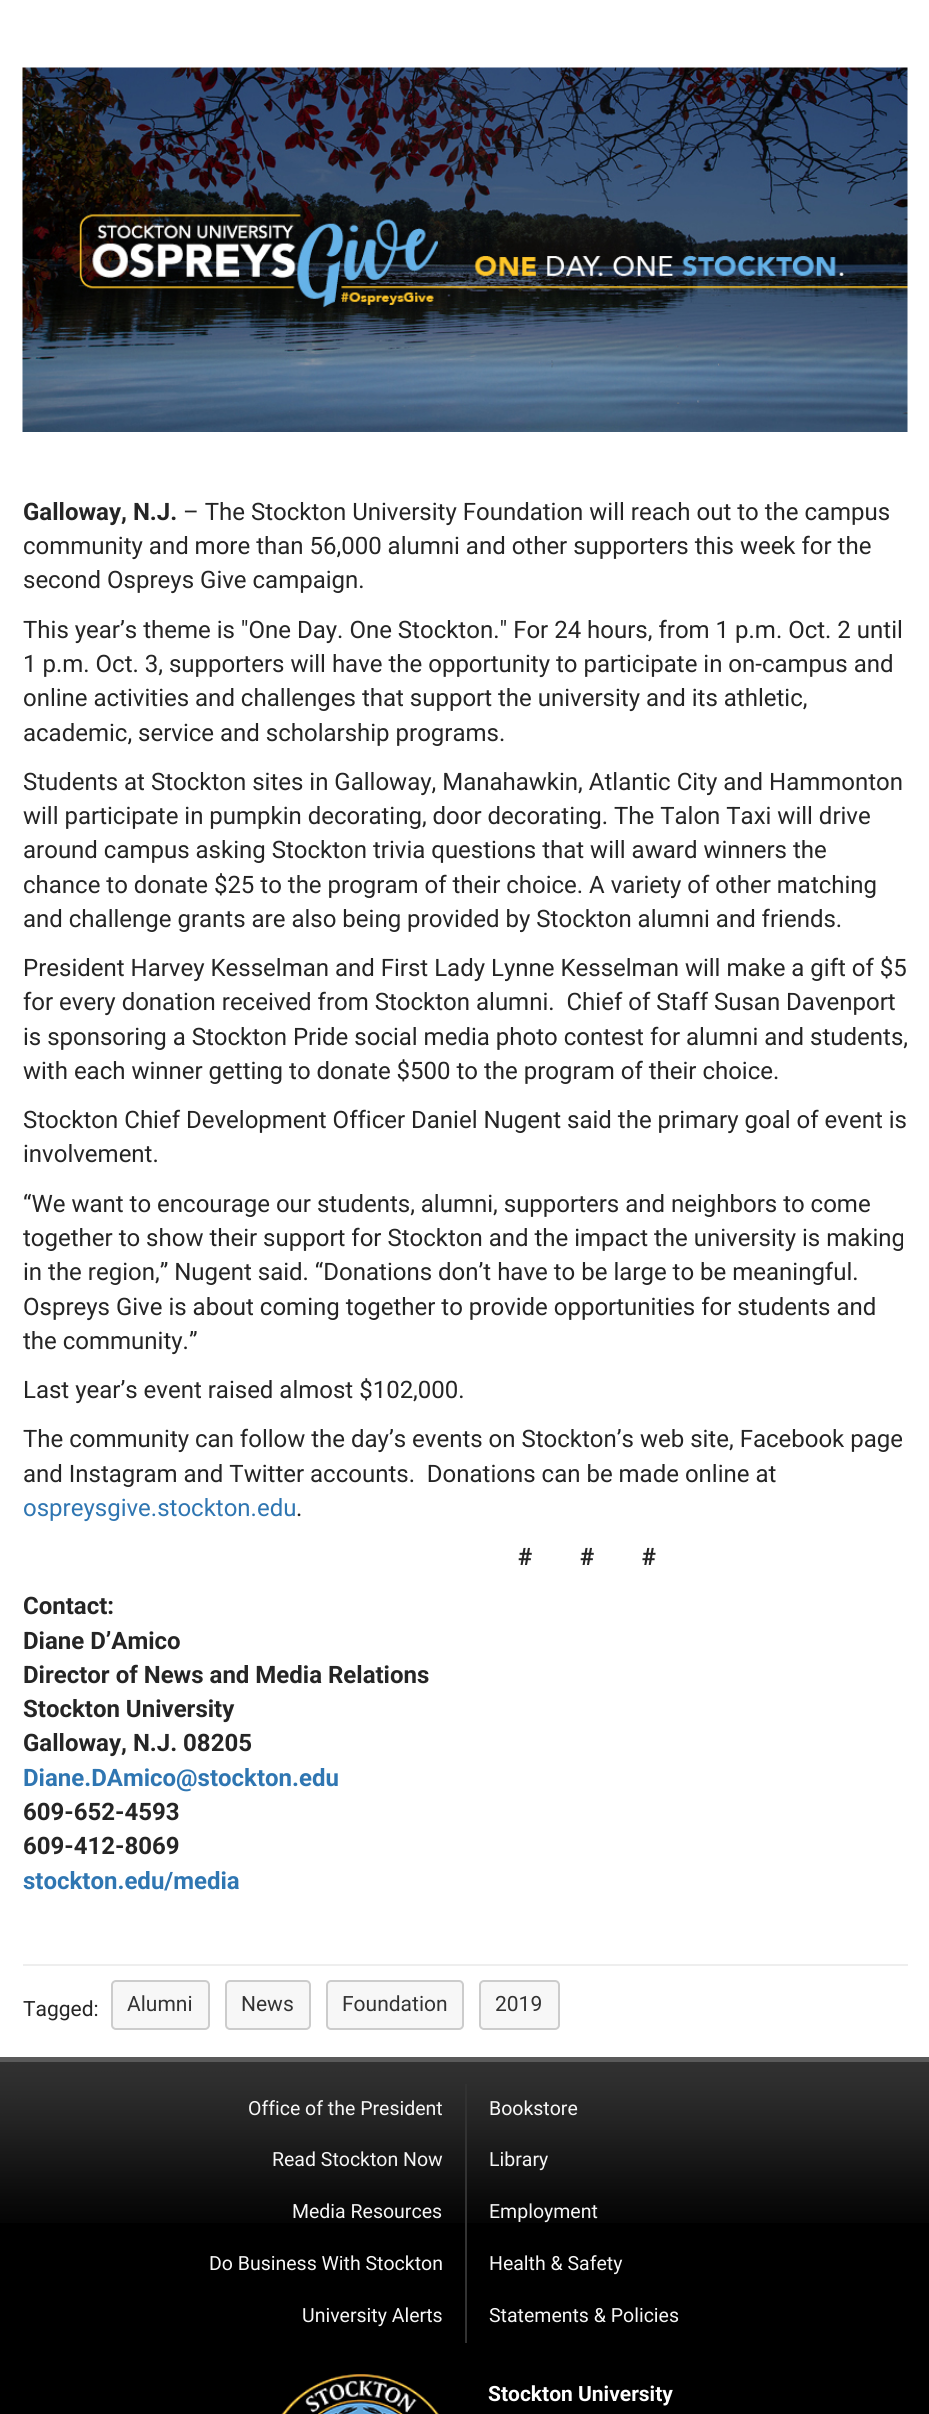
#include <cairo/cairo.h>
#include <math.h>
#include <stddef.h>

typedef struct { double x, y; const char *s; } line_t;
static cairo_t *cr;

static void rgb(unsigned color)
{
	cairo_set_source_rgb(cr, (color >> 16) / 255.0, (color >> 8 & 255) / 255.0, (color & 255) / 255.0);
}

static void rrect(double x, double y, double w, double h, double r)
{
	cairo_new_sub_path(cr);
	cairo_arc(cr, x + w - r, y + h - r, r, 0, M_PI / 2);
	cairo_arc(cr, x + r, y + h - r, r, M_PI / 2, M_PI);
	cairo_arc(cr, x + r, y + r, r, M_PI, 1.5 * M_PI);
	cairo_arc(cr, x + w - r, y + r, r, 1.5 * M_PI, 2 * M_PI);
	cairo_close_path(cr);
}

static void image(const char *path, double x, double y, double w, double h)
{
	cairo_surface_t *image = cairo_image_surface_create_from_png(path);
	cairo_save(cr);
	cairo_set_source_surface(cr, image, x, y);
	cairo_rectangle(cr, x, y, w, h);
	cairo_fill(cr);
	cairo_restore(cr);
	cairo_surface_destroy(image);
}

int main(void) {
	cairo_surface_t *surface = cairo_image_surface_create(CAIRO_FORMAT_RGB24, 929, 2414);
	cr = cairo_create(surface);
	cairo_font_options_t *options = cairo_font_options_create();
	cairo_font_options_set_hint_metrics(options, CAIRO_HINT_METRICS_OFF);
	cairo_font_options_set_hint_style(options, CAIRO_HINT_STYLE_NONE);
	cairo_set_font_options(cr, options);
	cairo_set_miter_limit(cr, 4);
	rgb(0x000000);
	cairo_paint(cr);
	rgb(0xffffff);
	cairo_rectangle(cr, 0, 0, 929, 2057);
	cairo_fill(cr);
	image("img/1.png", 22, 67, 886, 365);
	rgb(0xeeeeee);
	cairo_rectangle(cr, 23, 1964, 885, 2);
	cairo_fill(cr);
	rgb(0xf7f7f7);
	rrect(112, 1981, 97, 48, 4);
	cairo_fill_preserve(cr);
	rgb(0xcccccc);
	cairo_stroke(cr);
	rgb(0xf7f7f7);
	rrect(226, 1981, 84, 48, 4);
	cairo_fill_preserve(cr);
	rgb(0xcccccc);
	cairo_stroke(cr);
	rgb(0xf7f7f7);
	rrect(327, 1981, 136, 48, 4);
	cairo_fill_preserve(cr);
	rgb(0xcccccc);
	cairo_stroke(cr);
	rgb(0xf7f7f7);
	rrect(480, 1981, 79, 48, 4);
	cairo_fill_preserve(cr);
	rgb(0xcccccc);
	cairo_stroke(cr);
	image("img/2.png", 0, 2062, 929, 161);
	rgb(0x5a5a5a);
	cairo_rectangle(cr, 0, 2057, 929, 5);
	cairo_fill(cr);
	rgb(0x323232);
	cairo_rectangle(cr, 465, 2084, 2, 259);
	cairo_fill(cr);
	image("img/3.png", 281, 2374, 158, 40);
	cairo_select_font_face(cr, "Roboto", CAIRO_FONT_SLANT_NORMAL, CAIRO_FONT_WEIGHT_BOLD);
	cairo_set_font_size(cr, 24);
	rgb(0x252525);
	cairo_move_to(cr, 23, 520);
	cairo_show_text(cr, "Galloway, N.J.");
	cairo_select_font_face(cr, "Roboto", CAIRO_FONT_SLANT_NORMAL, CAIRO_FONT_WEIGHT_NORMAL);
	{
		static const line_t items[] = {
			{183, 520, "– The Stockton University Foundation will reach out to the campus"},
			{23, 554, "community and more than 56,000 alumni and other supporters this week for the"},
			{23, 588, "second Ospreys Give campaign."},
			{23, 638, "This year’s theme is \"One Day. One Stockton.\" For 24 hours, from 1 p.m. Oct. 2 until"},
			{23, 672, "1 p.m. Oct. 3, supporters will have the opportunity to participate in on-campus and"},
			{23, 706, "online activities and challenges that support the university and its athletic,"},
			{23, 741, "academic, service and scholarship programs."},
			{23, 790, "Students at Stockton sites in Galloway, Manahawkin, Atlantic City and Hammonton"},
			{23, 824, "will participate in pumpkin decorating, door decorating. The Talon Taxi will drive"},
			{23, 858, "around campus asking Stockton trivia questions that will award winners the"},
			{23, 893, "chance to donate $25 to the program of their choice. A variety of other matching"},
			{23, 927, "and challenge grants are also being provided by Stockton alumni and friends."},
			{23, 976, "President Harvey Kesselman and First Lady Lynne Kesselman will make a gift of $5"},
			{23, 1010, "for every donation received from Stockton alumni.  Chief of Staff Susan Davenport"},
			{23, 1045, "is sponsoring a Stockton Pride social media photo contest for alumni and students,"},
			{23, 1079, "with each winner getting to donate $500 to the program of their choice."},
			{23, 1128, "Stockton Chief Development Officer Daniel Nugent said the primary goal of event is"},
			{23, 1162, "involvement."},
			{23, 1212, "“We want to encourage our students, alumni, supporters and neighbors to come"},
			{23, 1246, "together to show their support for Stockton and the impact the university is making"},
			{23, 1280, "in the region,” Nugent said. “Donations don’t have to be large to be meaningful."},
			{23, 1315, "Ospreys Give is about coming together to provide opportunities for students and"},
			{23, 1349, "the community.”"},
			{23, 1398, "Last year’s event raised almost $102,000."},
			{23, 1447, "The community can follow the day’s events on Stockton’s web site, Facebook page"},
			{23, 1482, "and Instagram and Twitter accounts.  Donations can be made online at"},
		};
		for (size_t i = 0; i < sizeof items / sizeof *items; i++) {
			cairo_move_to(cr, items[i].x, items[i].y);
			cairo_show_text(cr, items[i].s);
		}
	}
	rgb(0x2f76b2);
	cairo_move_to(cr, 23, 1516);
	cairo_show_text(cr, "ospreysgive.stockton.edu");
	rgb(0x252525);
	cairo_move_to(cr, 296, 1516);
	cairo_show_text(cr, ".");
	cairo_select_font_face(cr, "Roboto", CAIRO_FONT_SLANT_NORMAL, CAIRO_FONT_WEIGHT_BOLD);
	{
		static const line_t items[] = {
			{518, 1565, "#        #        #"},
			{23, 1614, "Contact:"},
			{23, 1649, "Diane D’Amico"},
			{23, 1683, "Director of News and Media Relations"},
			{23, 1717, "Stockton University"},
			{23, 1751, "Galloway, N.J. 08205"},
		};
		for (size_t i = 0; i < sizeof items / sizeof *items; i++) {
			cairo_move_to(cr, items[i].x, items[i].y);
			cairo_show_text(cr, items[i].s);
		}
	}
	rgb(0x2f76b2);
	cairo_move_to(cr, 23, 1786);
	cairo_show_text(cr, "Diane.DAmico@stockton.edu");
	rgb(0x252525);
	cairo_move_to(cr, 23, 1820);
	cairo_show_text(cr, "609-652-4593");
	cairo_move_to(cr, 23, 1854);
	cairo_show_text(cr, "609-412-8069");
	rgb(0x2f76b2);
	cairo_move_to(cr, 23, 1889);
	cairo_show_text(cr, "stockton.edu/media");
	cairo_select_font_face(cr, "Roboto", CAIRO_FONT_SLANT_NORMAL, CAIRO_FONT_WEIGHT_NORMAL);
	cairo_set_font_size(cr, 21);
	rgb(0x252525);
	cairo_move_to(cr, 23, 2016);
	cairo_show_text(cr, "Tagged:");
	rgb(0x333333);
	{
		static const line_t items[] = {
			{127, 2011, "Alumni"},
			{241, 2011, "News"},
			{342, 2011, "Foundation"},
			{495, 2011, "2019"},
		};
		for (size_t i = 0; i < sizeof items / sizeof *items; i++) {
			cairo_move_to(cr, items[i].x, items[i].y);
			cairo_show_text(cr, items[i].s);
		}
	}
	cairo_set_font_size(cr, 19.5);
	rgb(0xf7f7f7);
	{
		static const line_t items[] = {
			{248, 2115, "Office of the President"},
			{272, 2166, "Read Stockton Now"},
			{292, 2218, "Media Resources"},
			{209, 2270, "Do Business With Stockton"},
			{302, 2322, "University Alerts"},
			{489, 2115, "Bookstore"},
			{489, 2166, "Library"},
			{489, 2218, "Employment"},
			{489, 2270, "Health & Safety"},
			{489, 2322, "Statements & Policies"},
		};
		for (size_t i = 0; i < sizeof items / sizeof *items; i++) {
			cairo_move_to(cr, items[i].x, items[i].y);
			cairo_show_text(cr, items[i].s);
		}
	}
	cairo_select_font_face(cr, "Roboto", CAIRO_FONT_SLANT_NORMAL, CAIRO_FONT_WEIGHT_BOLD);
	cairo_set_font_size(cr, 21);
	rgb(0xffffff);
	cairo_move_to(cr, 488, 2401);
	cairo_show_text(cr, "Stockton University");
	cairo_surface_write_to_png(surface, "page.png");
	cairo_font_options_destroy(options);
	cairo_destroy(cr);
	cairo_surface_destroy(surface);
	return 0;
}
